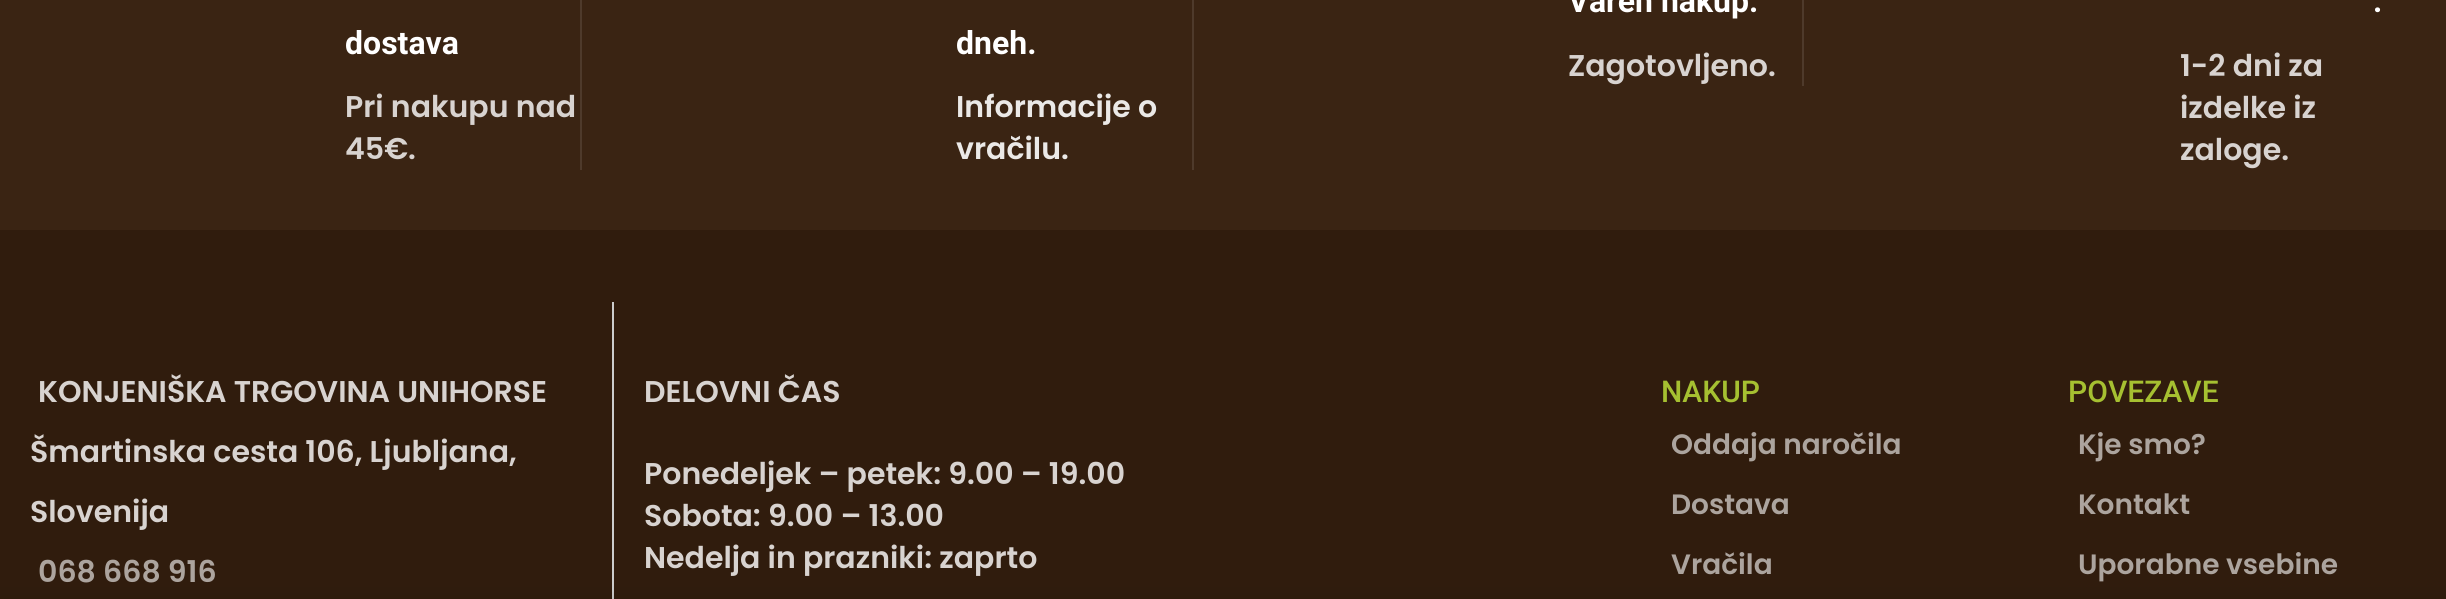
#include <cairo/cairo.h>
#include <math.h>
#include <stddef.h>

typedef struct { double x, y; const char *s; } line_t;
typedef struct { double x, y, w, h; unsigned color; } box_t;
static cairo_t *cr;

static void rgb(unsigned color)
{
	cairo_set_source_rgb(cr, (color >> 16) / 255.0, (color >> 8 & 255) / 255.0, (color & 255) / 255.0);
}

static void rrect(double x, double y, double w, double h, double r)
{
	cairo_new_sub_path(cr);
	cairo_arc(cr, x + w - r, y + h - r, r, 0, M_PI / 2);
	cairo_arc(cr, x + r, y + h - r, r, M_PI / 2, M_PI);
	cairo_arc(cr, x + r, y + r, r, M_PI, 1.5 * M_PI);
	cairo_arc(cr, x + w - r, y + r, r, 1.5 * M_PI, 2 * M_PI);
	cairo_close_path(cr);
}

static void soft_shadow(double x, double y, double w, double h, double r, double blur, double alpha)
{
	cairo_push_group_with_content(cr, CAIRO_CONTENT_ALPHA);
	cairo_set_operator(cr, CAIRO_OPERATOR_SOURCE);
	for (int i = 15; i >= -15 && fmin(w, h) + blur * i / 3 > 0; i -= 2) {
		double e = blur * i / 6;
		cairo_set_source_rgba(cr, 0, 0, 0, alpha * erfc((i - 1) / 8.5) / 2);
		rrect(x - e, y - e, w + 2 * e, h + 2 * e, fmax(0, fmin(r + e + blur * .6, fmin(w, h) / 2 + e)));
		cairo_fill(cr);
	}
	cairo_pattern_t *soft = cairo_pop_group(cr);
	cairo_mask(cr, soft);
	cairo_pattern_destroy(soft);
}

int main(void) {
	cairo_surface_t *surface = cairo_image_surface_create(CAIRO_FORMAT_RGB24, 2446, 599);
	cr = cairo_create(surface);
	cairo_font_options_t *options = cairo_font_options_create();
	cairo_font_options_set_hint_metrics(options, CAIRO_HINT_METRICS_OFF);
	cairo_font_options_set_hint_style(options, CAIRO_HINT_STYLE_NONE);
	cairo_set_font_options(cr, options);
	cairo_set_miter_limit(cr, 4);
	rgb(0x3a2413);
	cairo_paint(cr);
	{
		static const box_t items[] = {
			{580, 0, 2, 170, 0x4e3a2b},
			{1192, 0, 2, 170, 0x4e3a2b},
			{1802, 0, 2, 86, 0x4e3a2b},
			{0, 230, 2446, 369, 0x301c0d},
			{612, 302, 2, 297, 0xcccccc},
		};
		for (size_t i = 0; i < sizeof items / sizeof *items; i++) {
			rgb(items[i].color);
			cairo_rectangle(cr, items[i].x, items[i].y, items[i].w, items[i].h);
			cairo_fill(cr);
		}
	}
	rgb(0x000000);
	soft_shadow(0, 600, 2446, 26, 0, 9, 0.14);
	cairo_select_font_face(cr, "Roboto", CAIRO_FONT_SLANT_NORMAL, CAIRO_FONT_WEIGHT_BOLD);
	cairo_set_font_size(cr, 32);
	rgb(0xffffff);
	cairo_move_to(cr, 345, 54);
	cairo_show_text(cr, "dostava");
	cairo_select_font_face(cr, "Poppins SemiBold", CAIRO_FONT_SLANT_NORMAL, CAIRO_FONT_WEIGHT_NORMAL);
	cairo_set_font_size(cr, 30);
	rgb(0xd8d3d0);
	cairo_move_to(cr, 345, 117);
	cairo_show_text(cr, "Pri nakupu nad");
	cairo_move_to(cr, 345, 159);
	cairo_show_text(cr, "45€.");
	cairo_select_font_face(cr, "Roboto", CAIRO_FONT_SLANT_NORMAL, CAIRO_FONT_WEIGHT_BOLD);
	cairo_set_font_size(cr, 32);
	rgb(0xffffff);
	cairo_move_to(cr, 956, 54);
	cairo_show_text(cr, "dneh.");
	cairo_select_font_face(cr, "Poppins SemiBold", CAIRO_FONT_SLANT_NORMAL, CAIRO_FONT_WEIGHT_NORMAL);
	cairo_set_font_size(cr, 30);
	rgb(0xebe9e7);
	cairo_move_to(cr, 956, 117);
	cairo_show_text(cr, "Informacije o");
	cairo_move_to(cr, 956, 159);
	cairo_show_text(cr, "vračilu.");
	cairo_select_font_face(cr, "Roboto", CAIRO_FONT_SLANT_NORMAL, CAIRO_FONT_WEIGHT_BOLD);
	cairo_set_font_size(cr, 32);
	rgb(0xffffff);
	cairo_move_to(cr, 1568, 12);
	cairo_show_text(cr, "Varen nakup.");
	cairo_select_font_face(cr, "Poppins SemiBold", CAIRO_FONT_SLANT_NORMAL, CAIRO_FONT_WEIGHT_NORMAL);
	cairo_set_font_size(cr, 30);
	rgb(0xd8d3d0);
	cairo_move_to(cr, 1568, 76);
	cairo_show_text(cr, "Zagotovljeno.");
	cairo_select_font_face(cr, "Roboto", CAIRO_FONT_SLANT_NORMAL, CAIRO_FONT_WEIGHT_BOLD);
	cairo_set_font_size(cr, 32);
	rgb(0xffffff);
	cairo_move_to(cr, 2373, 12);
	cairo_show_text(cr, ".");
	cairo_select_font_face(cr, "Poppins SemiBold", CAIRO_FONT_SLANT_NORMAL, CAIRO_FONT_WEIGHT_NORMAL);
	cairo_set_font_size(cr, 30);
	rgb(0xd8d3d0);
	{
		static const line_t items[] = {
			{2180, 76, "1-2 dni za"},
			{2180, 118, "izdelke iz"},
			{2180, 160, "zaloge."},
			{38, 402, "KONJENIŠKA TRGOVINA UNIHORSE"},
			{30, 462, "Šmartinska cesta 106, Ljubljana,"},
			{30, 522, "Slovenija"},
		};
		for (size_t i = 0; i < sizeof items / sizeof *items; i++) {
			cairo_move_to(cr, items[i].x, items[i].y);
			cairo_show_text(cr, items[i].s);
		}
	}
	rgb(0xaca49e);
	cairo_move_to(cr, 38, 582);
	cairo_show_text(cr, "068 668 916");
	rgb(0xd8d3d0);
	{
		static const line_t items[] = {
			{644, 402, "DELOVNI ČAS"},
			{644, 484, "Ponedeljek – petek: 9.00 – 19.00"},
			{644, 526, "Sobota: 9.00 – 13.00"},
			{644, 568, "Nedelja in prazniki: zaprto"},
		};
		for (size_t i = 0; i < sizeof items / sizeof *items; i++) {
			cairo_move_to(cr, items[i].x, items[i].y);
			cairo_show_text(cr, items[i].s);
		}
	}
	cairo_select_font_face(cr, "Roboto Medium", CAIRO_FONT_SLANT_NORMAL, CAIRO_FONT_WEIGHT_NORMAL);
	rgb(0xa6c031);
	cairo_move_to(cr, 1661, 402);
	cairo_show_text(cr, "NAKUP");
	cairo_select_font_face(cr, "Poppins SemiBold", CAIRO_FONT_SLANT_NORMAL, CAIRO_FONT_WEIGHT_NORMAL);
	cairo_set_font_size(cr, 28);
	rgb(0xaca49e);
	{
		static const line_t items[] = {
			{1671, 454, "Oddaja naročila"},
			{1671, 514, "Dostava"},
			{1671, 574, "Vračila"},
		};
		for (size_t i = 0; i < sizeof items / sizeof *items; i++) {
			cairo_move_to(cr, items[i].x, items[i].y);
			cairo_show_text(cr, items[i].s);
		}
	}
	cairo_select_font_face(cr, "Roboto Medium", CAIRO_FONT_SLANT_NORMAL, CAIRO_FONT_WEIGHT_NORMAL);
	cairo_set_font_size(cr, 30);
	rgb(0xa6c031);
	cairo_move_to(cr, 2068, 402);
	cairo_show_text(cr, "POVEZAVE");
	cairo_select_font_face(cr, "Poppins SemiBold", CAIRO_FONT_SLANT_NORMAL, CAIRO_FONT_WEIGHT_NORMAL);
	cairo_set_font_size(cr, 28);
	rgb(0xaca49e);
	{
		static const line_t items[] = {
			{2078, 454, "Kje smo?"},
			{2078, 514, "Kontakt"},
			{2078, 574, "Uporabne vsebine"},
		};
		for (size_t i = 0; i < sizeof items / sizeof *items; i++) {
			cairo_move_to(cr, items[i].x, items[i].y);
			cairo_show_text(cr, items[i].s);
		}
	}
	cairo_surface_write_to_png(surface, "page.png");
	cairo_font_options_destroy(options);
	cairo_destroy(cr);
	cairo_surface_destroy(surface);
	return 0;
}
